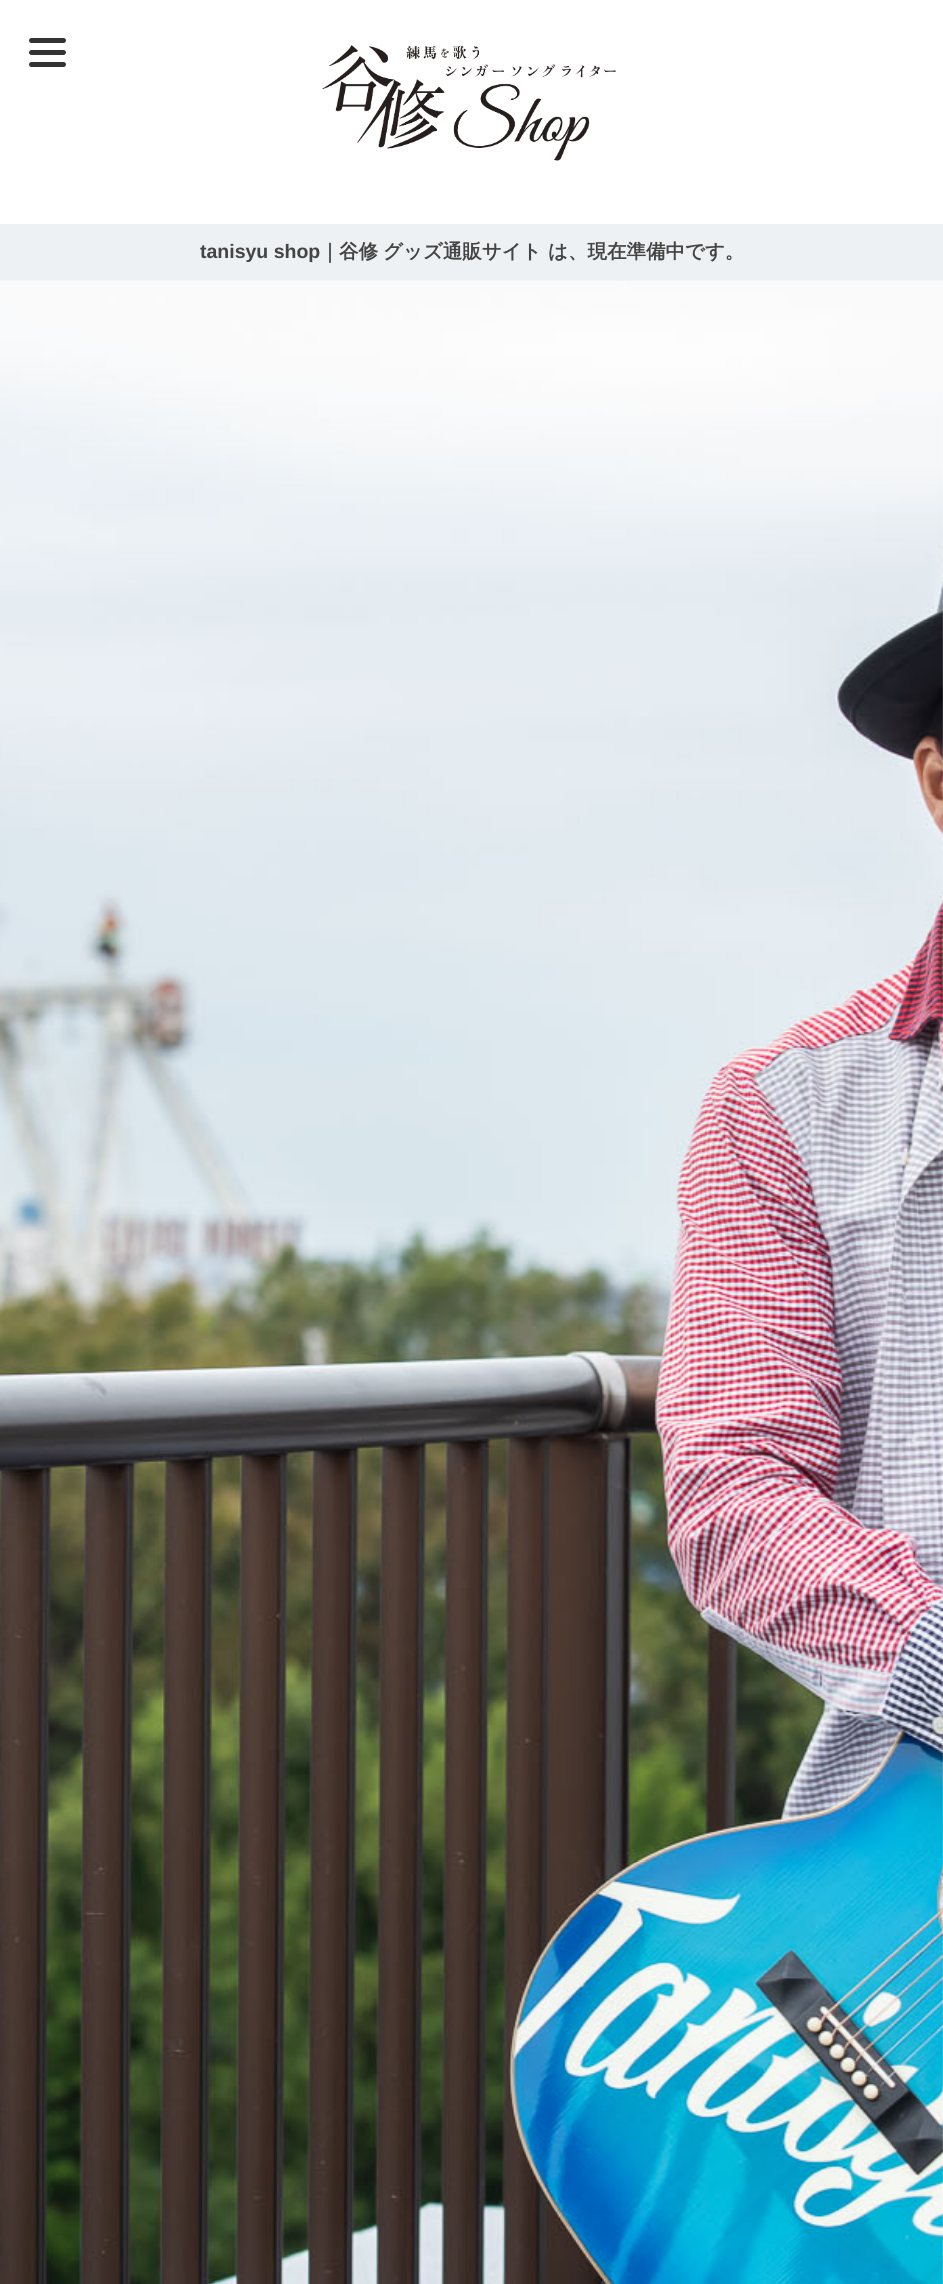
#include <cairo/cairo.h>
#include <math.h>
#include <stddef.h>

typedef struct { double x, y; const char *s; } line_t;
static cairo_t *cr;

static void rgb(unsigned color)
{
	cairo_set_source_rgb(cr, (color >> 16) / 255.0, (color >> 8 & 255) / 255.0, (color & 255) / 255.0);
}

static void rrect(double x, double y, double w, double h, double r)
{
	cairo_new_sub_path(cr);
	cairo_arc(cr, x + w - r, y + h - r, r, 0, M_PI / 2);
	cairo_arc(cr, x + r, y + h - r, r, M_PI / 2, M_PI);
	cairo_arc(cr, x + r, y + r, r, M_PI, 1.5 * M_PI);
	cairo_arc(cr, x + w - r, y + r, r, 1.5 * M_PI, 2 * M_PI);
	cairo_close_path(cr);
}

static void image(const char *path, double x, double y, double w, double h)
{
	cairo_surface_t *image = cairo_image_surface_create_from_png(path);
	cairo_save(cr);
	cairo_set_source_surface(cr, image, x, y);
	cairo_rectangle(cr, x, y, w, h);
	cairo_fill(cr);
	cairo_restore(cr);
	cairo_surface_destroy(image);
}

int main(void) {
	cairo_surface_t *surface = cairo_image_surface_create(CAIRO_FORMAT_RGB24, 943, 2284);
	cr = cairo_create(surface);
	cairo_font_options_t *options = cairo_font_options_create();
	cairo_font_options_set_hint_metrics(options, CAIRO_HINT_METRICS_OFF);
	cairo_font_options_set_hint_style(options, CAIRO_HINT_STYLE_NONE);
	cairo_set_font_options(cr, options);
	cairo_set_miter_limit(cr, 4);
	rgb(0xffffff);
	cairo_paint(cr);
	rgb(0x333333);
	rrect(29, 38, 37, 5, 2.5);
	cairo_fill(cr);
	rrect(29, 50, 37, 5, 2.5);
	cairo_fill(cr);
	rrect(29, 62, 37, 5, 2.5);
	cairo_fill(cr);
	image("img/1.png", 322, 45, 294, 116);
	rgb(0xeef1f3);
	cairo_rectangle(cr, 0, 224, 943, 57);
	cairo_fill(cr);
	image("img/2.png", 0, 280, 943, 2004);
	cairo_select_font_face(cr, "Liberation Sans", CAIRO_FONT_SLANT_NORMAL, CAIRO_FONT_WEIGHT_BOLD);
	cairo_set_font_size(cr, 19.5);
	rgb(0x444444);
	cairo_move_to(cr, 200, 258);
	cairo_show_text(cr, "tanisyu shop");
	cairo_select_font_face(cr, "WenQuanYi Zen Hei", CAIRO_FONT_SLANT_NORMAL, CAIRO_FONT_WEIGHT_BOLD);
	{
		static const line_t items[] = {
			{320, 258, "｜谷修"},
			{383, 258, "グッズ通販サイト"},
			{548, 258, "は、現在準備中です。"},
		};
		for (size_t i = 0; i < sizeof items / sizeof *items; i++) {
			cairo_move_to(cr, items[i].x, items[i].y);
			cairo_show_text(cr, items[i].s);
		}
	}
	cairo_surface_write_to_png(surface, "page.png");
	cairo_font_options_destroy(options);
	cairo_destroy(cr);
	cairo_surface_destroy(surface);
	return 0;
}
